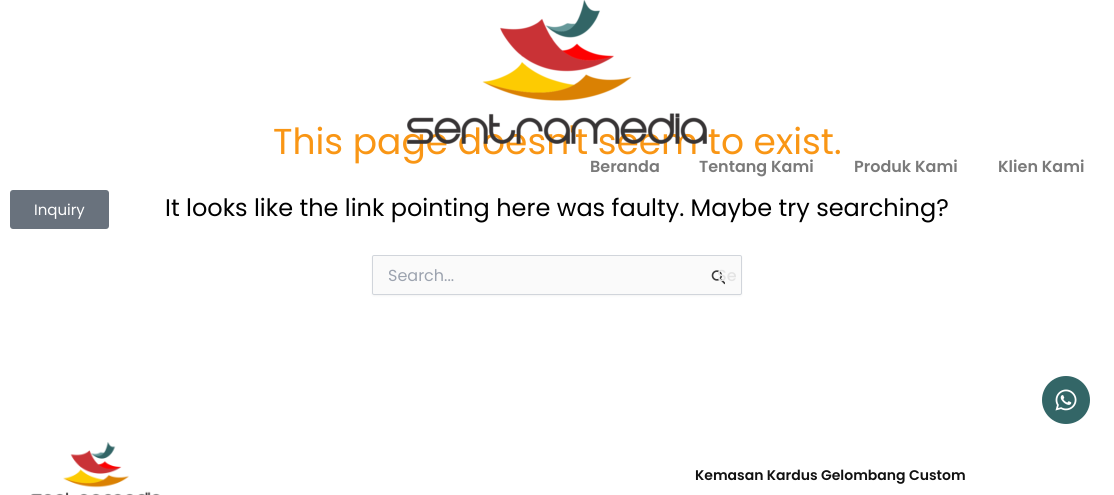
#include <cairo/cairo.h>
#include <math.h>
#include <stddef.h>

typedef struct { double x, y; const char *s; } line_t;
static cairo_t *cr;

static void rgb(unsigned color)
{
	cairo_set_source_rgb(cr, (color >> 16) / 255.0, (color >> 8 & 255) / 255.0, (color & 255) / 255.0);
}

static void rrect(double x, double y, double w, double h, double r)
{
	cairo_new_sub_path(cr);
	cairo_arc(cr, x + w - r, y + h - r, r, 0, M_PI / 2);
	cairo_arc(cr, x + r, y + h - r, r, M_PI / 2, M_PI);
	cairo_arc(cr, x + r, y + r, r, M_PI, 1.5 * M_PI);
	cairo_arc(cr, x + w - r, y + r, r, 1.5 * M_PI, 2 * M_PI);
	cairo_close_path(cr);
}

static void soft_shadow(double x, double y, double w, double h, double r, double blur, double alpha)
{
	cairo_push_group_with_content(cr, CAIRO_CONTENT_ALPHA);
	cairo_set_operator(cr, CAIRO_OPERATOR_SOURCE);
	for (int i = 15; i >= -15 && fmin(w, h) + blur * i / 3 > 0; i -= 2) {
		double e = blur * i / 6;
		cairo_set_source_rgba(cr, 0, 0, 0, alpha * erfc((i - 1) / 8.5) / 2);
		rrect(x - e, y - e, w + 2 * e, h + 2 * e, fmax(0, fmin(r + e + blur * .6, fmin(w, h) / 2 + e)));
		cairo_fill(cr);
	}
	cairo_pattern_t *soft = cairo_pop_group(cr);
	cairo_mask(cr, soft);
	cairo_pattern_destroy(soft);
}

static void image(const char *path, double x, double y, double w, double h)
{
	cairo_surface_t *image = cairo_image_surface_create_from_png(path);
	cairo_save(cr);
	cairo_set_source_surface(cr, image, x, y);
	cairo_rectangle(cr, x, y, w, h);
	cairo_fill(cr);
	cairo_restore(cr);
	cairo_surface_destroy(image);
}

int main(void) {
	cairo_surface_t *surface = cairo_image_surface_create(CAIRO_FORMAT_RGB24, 1114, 495);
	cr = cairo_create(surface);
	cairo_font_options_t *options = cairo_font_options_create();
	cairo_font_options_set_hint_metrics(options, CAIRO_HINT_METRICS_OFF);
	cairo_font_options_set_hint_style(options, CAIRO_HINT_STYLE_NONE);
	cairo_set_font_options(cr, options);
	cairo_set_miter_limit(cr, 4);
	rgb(0xffffff);
	cairo_paint(cr);
	rgb(0x000000);
	soft_shadow(372, 256, 370, 40, 2, 1, 0.05);
	rgb(0xfafafa);
	rrect(372.5, 255.5, 369, 39, 1.5);
	cairo_fill_preserve(cr);
	rgb(0xd1d5db);
	cairo_set_line_width(cr, 1);
	cairo_stroke(cr);
	image("img/1.png", 711, 270, 14, 15);
	rgb(0x69727d);
	rrect(10, 190, 99, 39, 3);
	cairo_fill(cr);
	rgb(0x336667);
	cairo_arc(cr, 1066, 400, 24, 0, 2 * M_PI);
	cairo_fill(cr);
	image("img/3.png", 1055, 389, 22, 22);
	image("img/4.png", 31, 442, 129, 53);
	cairo_select_font_face(cr, "Poppins", CAIRO_FONT_SLANT_NORMAL, CAIRO_FONT_WEIGHT_NORMAL);
	cairo_set_font_size(cr, 36);
	rgb(0xf99615);
	cairo_move_to(cr, 273, 154);
	cairo_show_text(cr, "This page doesn't seem to exist.");
	cairo_set_font_size(cr, 24);
	rgb(0x000000);
	cairo_move_to(cr, 165, 216);
	cairo_show_text(cr, "It looks like the link pointing here was faulty. Maybe try searching?");
	cairo_set_font_size(cr, 16);
	rgb(0x9ca3af);
	cairo_move_to(cr, 388, 281);
	cairo_show_text(cr, "Search...");
	cairo_select_font_face(cr, "Poppins Medium", CAIRO_FONT_SLANT_NORMAL, CAIRO_FONT_WEIGHT_NORMAL);
	rgb(0xe4e4e4);
	cairo_move_to(cr, 717, 281);
	cairo_show_text(cr, "Se");
	image("img/2.png", 407, 0, 300, 144);
	cairo_select_font_face(cr, "Poppins SemiBold", CAIRO_FONT_SLANT_NORMAL, CAIRO_FONT_WEIGHT_NORMAL);
	rgb(0x7a7a7a);
	{
		static const line_t items[] = {
			{590, 172, "Beranda"},
			{699, 172, "Tentang Kami"},
			{854, 172, "Produk Kami"},
			{998, 172, "Klien Kami"},
		};
		for (size_t i = 0; i < sizeof items / sizeof *items; i++) {
			cairo_move_to(cr, items[i].x, items[i].y);
			cairo_show_text(cr, items[i].s);
		}
	}
	cairo_select_font_face(cr, "Poppins", CAIRO_FONT_SLANT_NORMAL, CAIRO_FONT_WEIGHT_NORMAL);
	cairo_set_font_size(cr, 15);
	rgb(0xffffff);
	cairo_move_to(cr, 34, 215);
	cairo_show_text(cr, "Inquiry");
	cairo_select_font_face(cr, "Poppins SemiBold", CAIRO_FONT_SLANT_NORMAL, CAIRO_FONT_WEIGHT_NORMAL);
	cairo_set_font_size(cr, 14);
	rgb(0x111111);
	cairo_move_to(cr, 695, 480);
	cairo_show_text(cr, "Kemasan Kardus Gelombang Custom");
	cairo_surface_write_to_png(surface, "page.png");
	cairo_font_options_destroy(options);
	cairo_destroy(cr);
	cairo_surface_destroy(surface);
	return 0;
}
